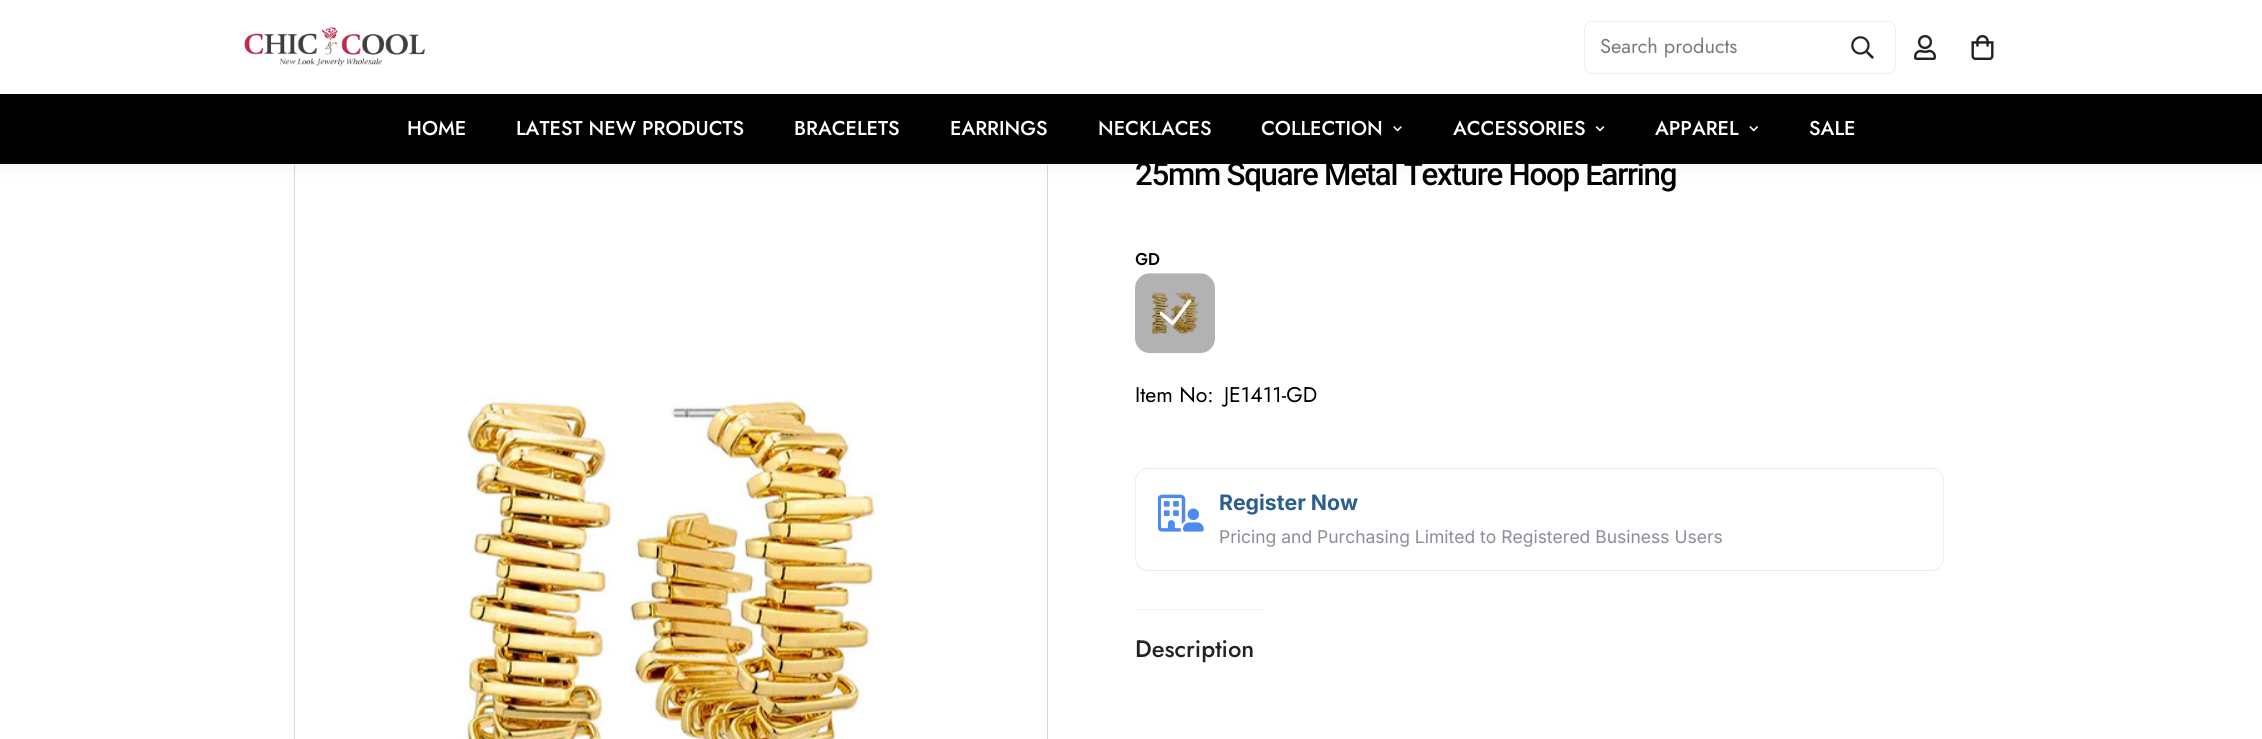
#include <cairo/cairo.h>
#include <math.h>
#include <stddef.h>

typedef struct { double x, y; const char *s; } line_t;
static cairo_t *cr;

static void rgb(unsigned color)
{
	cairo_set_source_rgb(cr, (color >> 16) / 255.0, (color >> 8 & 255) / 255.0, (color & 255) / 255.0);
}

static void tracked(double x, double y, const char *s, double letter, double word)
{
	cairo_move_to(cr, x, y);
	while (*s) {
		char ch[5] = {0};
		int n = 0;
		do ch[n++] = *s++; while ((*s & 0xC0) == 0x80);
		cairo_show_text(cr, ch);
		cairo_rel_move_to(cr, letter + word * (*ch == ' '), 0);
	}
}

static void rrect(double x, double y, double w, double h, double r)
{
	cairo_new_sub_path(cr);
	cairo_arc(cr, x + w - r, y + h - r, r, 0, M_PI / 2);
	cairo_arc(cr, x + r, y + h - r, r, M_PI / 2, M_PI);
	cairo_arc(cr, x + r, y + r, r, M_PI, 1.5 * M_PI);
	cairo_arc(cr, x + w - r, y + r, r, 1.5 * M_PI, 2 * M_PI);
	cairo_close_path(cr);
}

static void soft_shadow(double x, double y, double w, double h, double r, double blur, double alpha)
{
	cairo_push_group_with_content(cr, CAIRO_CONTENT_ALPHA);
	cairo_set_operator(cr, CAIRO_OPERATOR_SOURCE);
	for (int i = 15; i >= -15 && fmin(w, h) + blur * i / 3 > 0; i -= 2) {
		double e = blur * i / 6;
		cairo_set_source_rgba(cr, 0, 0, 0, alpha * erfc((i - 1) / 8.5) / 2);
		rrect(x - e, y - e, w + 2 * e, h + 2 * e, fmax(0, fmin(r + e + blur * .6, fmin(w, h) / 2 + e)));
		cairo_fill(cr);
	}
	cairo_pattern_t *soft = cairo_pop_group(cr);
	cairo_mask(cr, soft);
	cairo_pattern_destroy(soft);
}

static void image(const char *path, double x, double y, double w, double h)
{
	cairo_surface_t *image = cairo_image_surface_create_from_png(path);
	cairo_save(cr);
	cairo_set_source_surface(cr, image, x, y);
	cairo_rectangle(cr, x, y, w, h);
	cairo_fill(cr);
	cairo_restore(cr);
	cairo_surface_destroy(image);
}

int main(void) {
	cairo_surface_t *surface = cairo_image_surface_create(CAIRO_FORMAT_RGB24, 2262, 739);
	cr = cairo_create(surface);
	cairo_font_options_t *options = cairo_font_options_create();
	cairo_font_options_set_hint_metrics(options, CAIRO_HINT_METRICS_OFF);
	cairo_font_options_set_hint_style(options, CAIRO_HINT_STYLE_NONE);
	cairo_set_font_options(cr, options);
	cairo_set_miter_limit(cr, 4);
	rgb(0xffffff);
	cairo_paint(cr);
	cairo_rectangle(cr, 294.5, 130.5, 753, 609);
	rgb(0xdbdbdb);
	cairo_set_line_width(cr, 1);
	cairo_stroke(cr);
	rgb(0x000000);
	soft_shadow(0, 5, 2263, 164, 0, 12.5, 0.04);
	rgb(0xffffff);
	cairo_rectangle(cr, 0, 0, 2262, 94);
	cairo_fill(cr);
	image("img/1.png", 244, 27, 181, 39);
	rrect(1584.5, 21.5, 311, 52, 7.5);
	rgb(0xeeeeee);
	cairo_stroke(cr);
	image("img/2.png", 1851, 36, 23, 23);
	image("img/3.png", 1914, 35, 22, 25);
	image("img/4.png", 1971, 35, 23, 25);
	rgb(0x000000);
	cairo_rectangle(cr, 0, 94, 2262, 70);
	cairo_fill(cr);
	image("img/5.png", 1393, 126, 9, 6);
	image("img/6.png", 1595, 126, 10, 6);
	image("img/7.png", 1749, 126, 9, 6);
	image("img/8.png", 460, 396, 421, 343);
	image("img/9.png", 1135, 273, 80, 81);
	image("img/10.png", 1160, 300, 31, 26);
	rrect(1135.5, 468.5, 808, 102, 12.5);
	rgb(0xf0ebeb);
	cairo_stroke(cr);
	image("img/11.png", 1158, 494, 46, 38);
	rgb(0xf1f3f5);
	cairo_rectangle(cr, 1135, 609, 130, 1);
	cairo_fill(cr);
	cairo_select_font_face(cr, "Jost", CAIRO_FONT_SLANT_NORMAL, CAIRO_FONT_WEIGHT_NORMAL);
	cairo_set_font_size(cr, 20);
	rgb(0x7a7a7a);
	cairo_move_to(cr, 1600, 53);
	cairo_show_text(cr, "Search products");
	cairo_select_font_face(cr, "Jost Medium", CAIRO_FONT_SLANT_NORMAL, CAIRO_FONT_WEIGHT_NORMAL);
	rgb(0xffffff);
	{
		static const line_t items[] = {
			{407, 135, "HOME"},
			{516, 135, "LATEST NEW PRODUCTS"},
			{794, 135, "BRACELETS"},
			{950, 135, "EARRINGS"},
			{1098, 135, "NECKLACES"},
			{1261, 135, "COLLECTION"},
			{1453, 135, "ACCESSORIES"},
			{1655, 135, "APPAREL"},
			{1809, 135, "SALE"},
		};
		for (size_t i = 0; i < sizeof items / sizeof *items; i++) {
			cairo_move_to(cr, items[i].x, items[i].y);
			cairo_show_text(cr, items[i].s);
		}
	}
	cairo_select_font_face(cr, "Roboto Medium", CAIRO_FONT_SLANT_NORMAL, CAIRO_FONT_WEIGHT_NORMAL);
	cairo_set_font_size(cr, 31.25);
	rgb(0x000000);
	tracked(1135, 185, "25mm Square Metal Texture Hoop Earring", -1.25, 0);
	cairo_select_font_face(cr, "Plus Jakarta Sans", CAIRO_FONT_SLANT_NORMAL, CAIRO_FONT_WEIGHT_BOLD);
	cairo_set_font_size(cr, 16);
	cairo_move_to(cr, 1135, 265);
	cairo_show_text(cr, "GD");
	cairo_select_font_face(cr, "Jost", CAIRO_FONT_SLANT_NORMAL, CAIRO_FONT_WEIGHT_NORMAL);
	cairo_set_font_size(cr, 21.25);
	cairo_move_to(cr, 1135, 402);
	cairo_show_text(cr, "Item No:");
	cairo_move_to(cr, 1224, 402);
	cairo_show_text(cr, "JE1411-GD");
	cairo_select_font_face(cr, "Inter", CAIRO_FONT_SLANT_NORMAL, CAIRO_FONT_WEIGHT_BOLD);
	rgb(0x2b5e8f);
	cairo_move_to(cr, 1219, 510);
	cairo_show_text(cr, "Register Now");
	cairo_select_font_face(cr, "Inter", CAIRO_FONT_SLANT_NORMAL, CAIRO_FONT_WEIGHT_NORMAL);
	cairo_set_font_size(cr, 17.5);
	rgb(0x898d95);
	cairo_move_to(cr, 1219, 543);
	cairo_show_text(cr, "Pricing and Purchasing Limited to Registered Business Users");
	cairo_select_font_face(cr, "Jost Medium", CAIRO_FONT_SLANT_NORMAL, CAIRO_FONT_WEIGHT_NORMAL);
	cairo_set_font_size(cr, 23.75);
	rgb(0x222222);
	cairo_move_to(cr, 1135, 657);
	cairo_show_text(cr, "Description");
	cairo_surface_write_to_png(surface, "page.png");
	cairo_font_options_destroy(options);
	cairo_destroy(cr);
	cairo_surface_destroy(surface);
	return 0;
}
